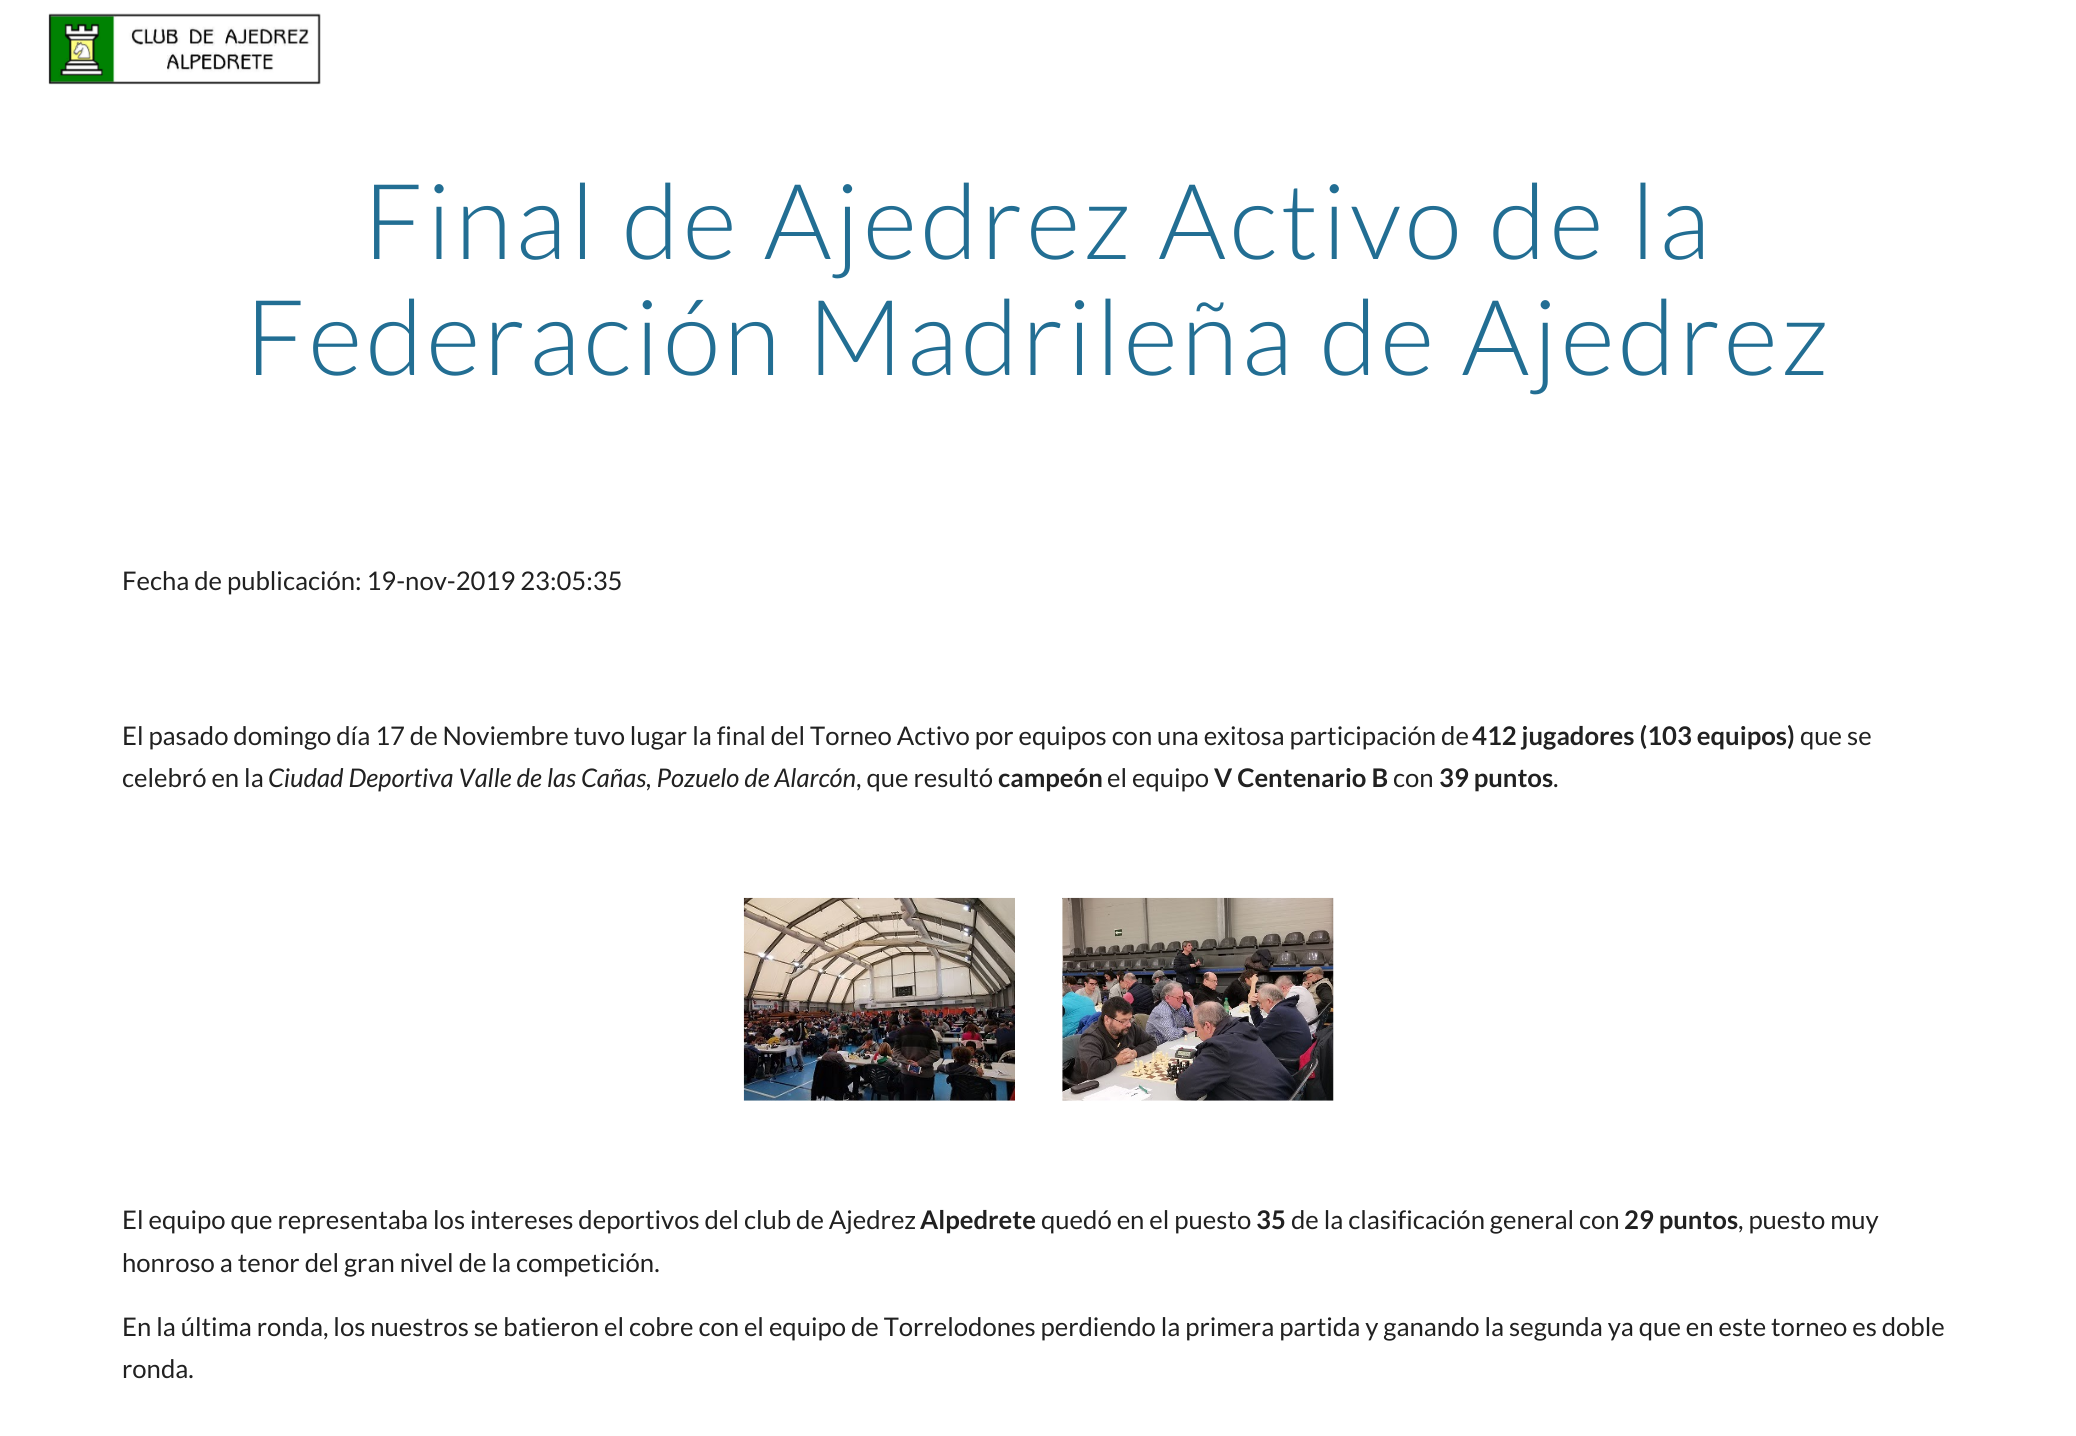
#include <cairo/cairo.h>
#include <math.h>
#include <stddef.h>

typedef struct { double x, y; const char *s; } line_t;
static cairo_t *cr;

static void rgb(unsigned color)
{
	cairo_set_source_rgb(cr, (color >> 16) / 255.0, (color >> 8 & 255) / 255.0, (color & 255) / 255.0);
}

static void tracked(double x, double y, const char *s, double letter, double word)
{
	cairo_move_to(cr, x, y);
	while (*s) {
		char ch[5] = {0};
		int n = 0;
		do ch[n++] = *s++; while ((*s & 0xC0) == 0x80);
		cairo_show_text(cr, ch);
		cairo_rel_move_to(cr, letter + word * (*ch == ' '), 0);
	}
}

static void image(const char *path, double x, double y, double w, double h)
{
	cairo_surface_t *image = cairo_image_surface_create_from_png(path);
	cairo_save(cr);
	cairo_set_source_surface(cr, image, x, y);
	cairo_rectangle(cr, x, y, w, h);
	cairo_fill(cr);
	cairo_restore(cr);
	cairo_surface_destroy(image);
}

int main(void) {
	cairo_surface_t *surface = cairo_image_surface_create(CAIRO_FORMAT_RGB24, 2076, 1436);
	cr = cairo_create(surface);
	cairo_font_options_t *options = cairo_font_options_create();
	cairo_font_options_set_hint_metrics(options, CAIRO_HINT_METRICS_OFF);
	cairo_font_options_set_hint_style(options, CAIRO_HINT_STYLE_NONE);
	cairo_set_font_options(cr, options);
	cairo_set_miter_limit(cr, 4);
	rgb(0xffffff);
	cairo_paint(cr);
	image("img/1.png", 48, 13, 273, 72);
	image("img/2.png", 743, 897, 272, 204);
	image("img/3.png", 1062, 897, 272, 204);
	cairo_select_font_face(cr, "Lato Light", CAIRO_FONT_SLANT_NORMAL, CAIRO_FONT_WEIGHT_NORMAL);
	cairo_set_font_size(cr, 105);
	rgb(0x226e93);
	tracked(363, 259, "Final de Ajedrez Activo de la", 3.5, 0);
	tracked(245, 375, "Federación Madrileña de Ajedrez", 3.5, 0);
	cairo_select_font_face(cr, "Lato", CAIRO_FONT_SLANT_NORMAL, CAIRO_FONT_WEIGHT_NORMAL);
	cairo_set_font_size(cr, 25.67);
	rgb(0x212121);
	cairo_move_to(cr, 122, 590);
	cairo_show_text(cr, "Fecha de publicación: 19-nov-2019 23:05:35");
	cairo_move_to(cr, 122, 745);
	cairo_show_text(cr, "El pasado domingo día 17 de Noviembre tuvo lugar la final del Torneo Activo por equipos con una exitosa participación de");
	cairo_select_font_face(cr, "Lato", CAIRO_FONT_SLANT_NORMAL, CAIRO_FONT_WEIGHT_BOLD);
	cairo_move_to(cr, 1472, 745);
	cairo_show_text(cr, "412 jugadores (103 equipos)");
	cairo_select_font_face(cr, "Lato", CAIRO_FONT_SLANT_NORMAL, CAIRO_FONT_WEIGHT_NORMAL);
	cairo_move_to(cr, 1800, 745);
	cairo_show_text(cr, "que se");
	cairo_move_to(cr, 122, 787);
	cairo_show_text(cr, "celebró en la");
	cairo_select_font_face(cr, "Lato", CAIRO_FONT_SLANT_ITALIC, CAIRO_FONT_WEIGHT_NORMAL);
	cairo_move_to(cr, 268, 787);
	cairo_show_text(cr, "Ciudad Deportiva Valle de las Cañas, Pozuelo de Alarcón");
	cairo_select_font_face(cr, "Lato", CAIRO_FONT_SLANT_NORMAL, CAIRO_FONT_WEIGHT_NORMAL);
	cairo_move_to(cr, 856, 787);
	cairo_show_text(cr, ", que resultó");
	cairo_select_font_face(cr, "Lato", CAIRO_FONT_SLANT_NORMAL, CAIRO_FONT_WEIGHT_BOLD);
	cairo_move_to(cr, 998, 787);
	cairo_show_text(cr, "campeón");
	cairo_select_font_face(cr, "Lato", CAIRO_FONT_SLANT_NORMAL, CAIRO_FONT_WEIGHT_NORMAL);
	cairo_move_to(cr, 1107, 787);
	cairo_show_text(cr, "el equipo");
	cairo_select_font_face(cr, "Lato", CAIRO_FONT_SLANT_NORMAL, CAIRO_FONT_WEIGHT_BOLD);
	cairo_move_to(cr, 1214, 787);
	cairo_show_text(cr, "V Centenario B");
	cairo_select_font_face(cr, "Lato", CAIRO_FONT_SLANT_NORMAL, CAIRO_FONT_WEIGHT_NORMAL);
	cairo_move_to(cr, 1393, 787);
	cairo_show_text(cr, "con");
	cairo_select_font_face(cr, "Lato", CAIRO_FONT_SLANT_NORMAL, CAIRO_FONT_WEIGHT_BOLD);
	cairo_move_to(cr, 1439, 787);
	cairo_show_text(cr, "39 puntos");
	cairo_select_font_face(cr, "Lato", CAIRO_FONT_SLANT_NORMAL, CAIRO_FONT_WEIGHT_NORMAL);
	cairo_move_to(cr, 1553, 787);
	cairo_show_text(cr, ".");
	cairo_move_to(cr, 122, 1229);
	cairo_show_text(cr, "El equipo que representaba los intereses deportivos del club de Ajedrez");
	cairo_select_font_face(cr, "Lato", CAIRO_FONT_SLANT_NORMAL, CAIRO_FONT_WEIGHT_BOLD);
	cairo_move_to(cr, 920, 1229);
	cairo_show_text(cr, "Alpedrete");
	cairo_select_font_face(cr, "Lato", CAIRO_FONT_SLANT_NORMAL, CAIRO_FONT_WEIGHT_NORMAL);
	cairo_move_to(cr, 1041, 1229);
	cairo_show_text(cr, "quedó en el puesto");
	cairo_select_font_face(cr, "Lato", CAIRO_FONT_SLANT_NORMAL, CAIRO_FONT_WEIGHT_BOLD);
	cairo_move_to(cr, 1256, 1229);
	cairo_show_text(cr, "35");
	cairo_select_font_face(cr, "Lato", CAIRO_FONT_SLANT_NORMAL, CAIRO_FONT_WEIGHT_NORMAL);
	cairo_move_to(cr, 1291, 1229);
	cairo_show_text(cr, "de la clasificación general con");
	cairo_select_font_face(cr, "Lato", CAIRO_FONT_SLANT_NORMAL, CAIRO_FONT_WEIGHT_BOLD);
	cairo_move_to(cr, 1624, 1229);
	cairo_show_text(cr, "29 puntos");
	cairo_select_font_face(cr, "Lato", CAIRO_FONT_SLANT_NORMAL, CAIRO_FONT_WEIGHT_NORMAL);
	{
		static const line_t items[] = {
			{1738, 1229, ", puesto muy"},
			{122, 1272, "honroso a tenor del gran nivel de la competición."},
			{122, 1336, "En la última ronda, los nuestros se batieron el cobre con el equipo de Torrelodones perdiendo la primera partida y ganando la segunda ya que en este torneo es doble"},
			{122, 1378, "ronda."},
		};
		for (size_t i = 0; i < sizeof items / sizeof *items; i++) {
			cairo_move_to(cr, items[i].x, items[i].y);
			cairo_show_text(cr, items[i].s);
		}
	}
	cairo_surface_write_to_png(surface, "page.png");
	cairo_font_options_destroy(options);
	cairo_destroy(cr);
	cairo_surface_destroy(surface);
	return 0;
}
